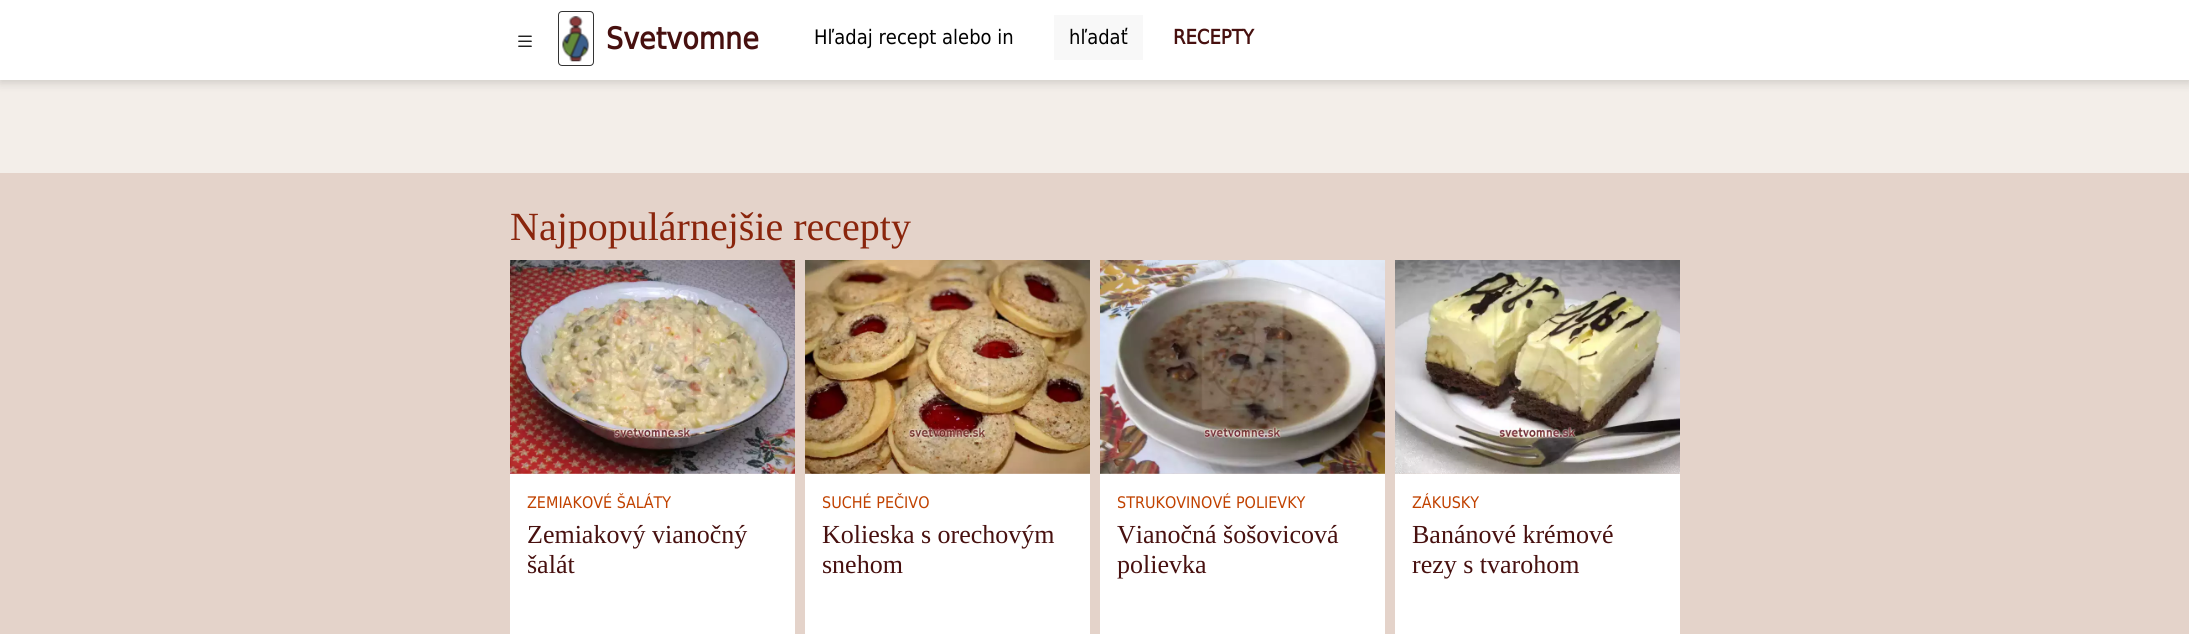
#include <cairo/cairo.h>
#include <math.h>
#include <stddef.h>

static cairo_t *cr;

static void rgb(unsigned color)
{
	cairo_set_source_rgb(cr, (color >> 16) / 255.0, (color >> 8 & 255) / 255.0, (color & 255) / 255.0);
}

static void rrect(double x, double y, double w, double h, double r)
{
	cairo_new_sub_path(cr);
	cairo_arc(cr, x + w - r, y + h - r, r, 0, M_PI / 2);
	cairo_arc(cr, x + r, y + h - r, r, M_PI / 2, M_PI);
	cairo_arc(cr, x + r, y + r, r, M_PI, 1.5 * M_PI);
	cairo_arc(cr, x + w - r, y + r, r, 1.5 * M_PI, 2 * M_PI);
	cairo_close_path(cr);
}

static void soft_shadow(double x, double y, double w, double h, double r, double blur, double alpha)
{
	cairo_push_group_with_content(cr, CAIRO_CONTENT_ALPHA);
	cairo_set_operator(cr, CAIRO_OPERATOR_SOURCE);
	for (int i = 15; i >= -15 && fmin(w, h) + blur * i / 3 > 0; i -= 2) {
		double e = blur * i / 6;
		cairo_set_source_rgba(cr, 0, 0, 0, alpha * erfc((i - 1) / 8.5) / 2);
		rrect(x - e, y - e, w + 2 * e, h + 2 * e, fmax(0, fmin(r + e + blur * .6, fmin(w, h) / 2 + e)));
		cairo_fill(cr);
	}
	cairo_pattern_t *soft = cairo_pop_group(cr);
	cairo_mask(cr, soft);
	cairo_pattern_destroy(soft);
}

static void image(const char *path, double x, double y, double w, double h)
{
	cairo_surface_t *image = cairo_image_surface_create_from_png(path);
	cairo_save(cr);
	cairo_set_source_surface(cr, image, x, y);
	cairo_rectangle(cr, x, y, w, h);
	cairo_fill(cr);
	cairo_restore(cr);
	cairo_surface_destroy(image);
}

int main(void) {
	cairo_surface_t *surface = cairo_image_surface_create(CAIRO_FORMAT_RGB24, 2189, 634);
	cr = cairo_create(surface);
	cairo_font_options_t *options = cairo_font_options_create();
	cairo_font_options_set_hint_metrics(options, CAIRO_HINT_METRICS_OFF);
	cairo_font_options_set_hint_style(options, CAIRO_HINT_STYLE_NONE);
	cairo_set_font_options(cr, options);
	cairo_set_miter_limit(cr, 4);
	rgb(0xf3eee9);
	cairo_paint(cr);
	rgb(0x000000);
	soft_shadow(0, 3, 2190, 80, 0, 5, 0.15);
	rgb(0xffffff);
	cairo_rectangle(cr, 0, 0, 2189, 80);
	cairo_fill(cr);
	image("img/1.png", 518, 35, 14, 12);
	rrect(558.5, 11.5, 35, 54, 3.5);
	rgb(0x333333);
	cairo_set_line_width(cr, 1);
	cairo_stroke(cr);
	image("img/2.png", 562, 16, 28, 46);
	rgb(0xf8f8f8);
	cairo_rectangle(cr, 1054, 15, 89, 45);
	cairo_fill(cr);
	rgb(0xe4d3ca);
	cairo_rectangle(cr, 0, 173, 2189, 461);
	cairo_fill(cr);
	image("img/3.png", 510, 260, 285, 214);
	rgb(0xffffff);
	cairo_rectangle(cr, 510, 474, 285, 160);
	cairo_fill(cr);
	image("img/4.png", 805, 260, 285, 214);
	cairo_rectangle(cr, 805, 474, 285, 160);
	cairo_fill(cr);
	image("img/5.png", 1100, 260, 285, 214);
	cairo_rectangle(cr, 1100, 474, 285, 160);
	cairo_fill(cr);
	image("img/6.png", 1395, 260, 285, 214);
	cairo_rectangle(cr, 1395, 474, 285, 160);
	cairo_fill(cr);
	cairo_select_font_face(cr, "DejaVu Sans", CAIRO_FONT_SLANT_NORMAL, CAIRO_FONT_WEIGHT_BOLD);
	cairo_set_font_size(cr, 30);
	rgb(0x47100f);
	cairo_move_to(cr, 606, 49);
	cairo_show_text(cr, "Svetvomne");
	cairo_select_font_face(cr, "DejaVu Sans", CAIRO_FONT_SLANT_NORMAL, CAIRO_FONT_WEIGHT_NORMAL);
	cairo_set_font_size(cr, 20);
	rgb(0x000000);
	cairo_move_to(cr, 814, 44);
	cairo_show_text(cr, "Hľadaj recept alebo in");
	cairo_move_to(cr, 1069, 44);
	cairo_show_text(cr, "hľadať");
	cairo_select_font_face(cr, "DejaVu Sans", CAIRO_FONT_SLANT_NORMAL, CAIRO_FONT_WEIGHT_BOLD);
	rgb(0x47100f);
	cairo_move_to(cr, 1173, 44);
	cairo_show_text(cr, "RECEPTY");
	cairo_select_font_face(cr, "Liberation Serif", CAIRO_FONT_SLANT_NORMAL, CAIRO_FONT_WEIGHT_NORMAL);
	cairo_set_font_size(cr, 40);
	rgb(0x8a250c);
	cairo_move_to(cr, 510, 240);
	cairo_show_text(cr, "Najpopulárnejšie recepty");
	cairo_select_font_face(cr, "DejaVu Sans", CAIRO_FONT_SLANT_NORMAL, CAIRO_FONT_WEIGHT_NORMAL);
	cairo_set_font_size(cr, 16);
	rgb(0xc14200);
	cairo_move_to(cr, 527, 508);
	cairo_show_text(cr, "ZEMIAKOVÉ ŠALÁTY");
	cairo_select_font_face(cr, "Liberation Serif", CAIRO_FONT_SLANT_NORMAL, CAIRO_FONT_WEIGHT_NORMAL);
	cairo_set_font_size(cr, 26);
	rgb(0x47100f);
	cairo_move_to(cr, 527, 543);
	cairo_show_text(cr, "Zemiakový vianočný");
	cairo_move_to(cr, 527, 573);
	cairo_show_text(cr, "šalát");
	cairo_select_font_face(cr, "DejaVu Sans", CAIRO_FONT_SLANT_NORMAL, CAIRO_FONT_WEIGHT_NORMAL);
	cairo_set_font_size(cr, 16);
	rgb(0xc14200);
	cairo_move_to(cr, 822, 508);
	cairo_show_text(cr, "SUCHÉ PEČIVO");
	cairo_select_font_face(cr, "Liberation Serif", CAIRO_FONT_SLANT_NORMAL, CAIRO_FONT_WEIGHT_NORMAL);
	cairo_set_font_size(cr, 26);
	rgb(0x47100f);
	cairo_move_to(cr, 822, 543);
	cairo_show_text(cr, "Kolieska s orechovým");
	cairo_move_to(cr, 822, 573);
	cairo_show_text(cr, "snehom");
	cairo_select_font_face(cr, "DejaVu Sans", CAIRO_FONT_SLANT_NORMAL, CAIRO_FONT_WEIGHT_NORMAL);
	cairo_set_font_size(cr, 16);
	rgb(0xc14200);
	cairo_move_to(cr, 1117, 508);
	cairo_show_text(cr, "STRUKOVINOVÉ POLIEVKY");
	cairo_select_font_face(cr, "Liberation Serif", CAIRO_FONT_SLANT_NORMAL, CAIRO_FONT_WEIGHT_NORMAL);
	cairo_set_font_size(cr, 26);
	rgb(0x47100f);
	cairo_move_to(cr, 1117, 543);
	cairo_show_text(cr, "Vianočná šošovicová");
	cairo_move_to(cr, 1117, 573);
	cairo_show_text(cr, "polievka");
	cairo_select_font_face(cr, "DejaVu Sans", CAIRO_FONT_SLANT_NORMAL, CAIRO_FONT_WEIGHT_NORMAL);
	cairo_set_font_size(cr, 16);
	rgb(0xc14200);
	cairo_move_to(cr, 1412, 508);
	cairo_show_text(cr, "ZÁKUSKY");
	cairo_select_font_face(cr, "Liberation Serif", CAIRO_FONT_SLANT_NORMAL, CAIRO_FONT_WEIGHT_NORMAL);
	cairo_set_font_size(cr, 26);
	rgb(0x47100f);
	cairo_move_to(cr, 1412, 543);
	cairo_show_text(cr, "Banánové krémové");
	cairo_move_to(cr, 1412, 573);
	cairo_show_text(cr, "rezy s tvarohom");
	cairo_surface_write_to_png(surface, "page.png");
	cairo_font_options_destroy(options);
	cairo_destroy(cr);
	cairo_surface_destroy(surface);
	return 0;
}
